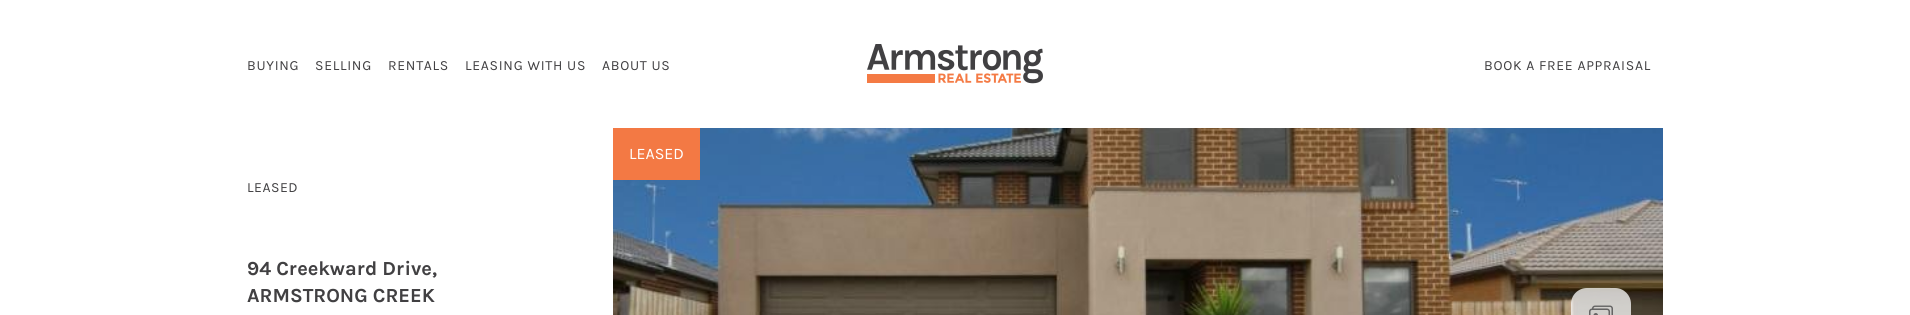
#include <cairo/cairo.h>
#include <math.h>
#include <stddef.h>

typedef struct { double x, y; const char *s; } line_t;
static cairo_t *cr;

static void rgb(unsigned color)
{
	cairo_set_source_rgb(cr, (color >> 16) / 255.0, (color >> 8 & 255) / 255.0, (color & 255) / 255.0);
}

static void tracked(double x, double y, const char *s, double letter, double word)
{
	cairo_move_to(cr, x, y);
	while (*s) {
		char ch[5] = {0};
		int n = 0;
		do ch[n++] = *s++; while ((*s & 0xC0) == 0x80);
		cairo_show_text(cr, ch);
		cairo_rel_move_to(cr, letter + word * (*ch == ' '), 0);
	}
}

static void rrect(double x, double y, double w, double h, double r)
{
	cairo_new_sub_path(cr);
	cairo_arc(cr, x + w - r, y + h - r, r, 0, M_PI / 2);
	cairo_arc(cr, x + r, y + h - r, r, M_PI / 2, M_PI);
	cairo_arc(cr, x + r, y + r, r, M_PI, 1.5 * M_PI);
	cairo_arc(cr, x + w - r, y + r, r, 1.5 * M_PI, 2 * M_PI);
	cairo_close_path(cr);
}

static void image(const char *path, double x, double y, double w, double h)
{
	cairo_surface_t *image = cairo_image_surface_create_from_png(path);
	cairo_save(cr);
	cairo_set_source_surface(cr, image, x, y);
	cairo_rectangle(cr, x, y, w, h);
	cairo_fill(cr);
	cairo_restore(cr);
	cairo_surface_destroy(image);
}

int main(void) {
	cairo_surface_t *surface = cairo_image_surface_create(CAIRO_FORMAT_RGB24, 1910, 315);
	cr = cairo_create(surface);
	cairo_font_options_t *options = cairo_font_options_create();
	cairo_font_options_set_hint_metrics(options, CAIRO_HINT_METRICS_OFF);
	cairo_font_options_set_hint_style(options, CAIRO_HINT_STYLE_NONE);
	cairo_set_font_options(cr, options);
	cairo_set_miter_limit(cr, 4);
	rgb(0xffffff);
	cairo_paint(cr);
	image("img/1.png", 867, 44, 176, 40);
	image("img/2.png", 613, 128, 1050, 187);
	rgb(0xf37944);
	cairo_rectangle(cr, 613, 128, 87, 52);
	cairo_fill(cr);
	cairo_set_source_rgba(cr, 1, 1, 1, 0.75);
	rrect(1571, 288, 60, 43, 16);
	cairo_fill(cr);
	image("img/3.png", 1589, 305, 24, 10);
	cairo_select_font_face(cr, "Karla", CAIRO_FONT_SLANT_NORMAL, CAIRO_FONT_WEIGHT_NORMAL);
	cairo_set_font_size(cr, 14);
	rgb(0x414042);
	{
		static const line_t items[] = {
			{247, 70, "BUYING"},
			{315, 70, "SELLING"},
			{388, 70, "RENTALS"},
			{465, 70, "LEASING WITH US"},
			{602, 70, "ABOUT US"},
			{1484, 70, "BOOK A FREE APPRAISAL"},
		};
		for (size_t i = 0; i < sizeof items / sizeof *items; i++) {
			tracked(items[i].x, items[i].y, items[i].s, 0.7, 0);
		}
	}
	cairo_set_font_size(cr, 16);
	rgb(0xffffff);
	cairo_move_to(cr, 629, 159);
	cairo_show_text(cr, "LEASED");
	cairo_set_font_size(cr, 14);
	rgb(0x414042);
	tracked(247, 192, "LEASED", 0.5, 0);
	cairo_select_font_face(cr, "Karla", CAIRO_FONT_SLANT_NORMAL, CAIRO_FONT_WEIGHT_BOLD);
	cairo_set_font_size(cr, 20);
	cairo_move_to(cr, 247, 275);
	cairo_show_text(cr, "94 Creekward Drive,");
	cairo_move_to(cr, 247, 302);
	cairo_show_text(cr, "ARMSTRONG CREEK");
	cairo_surface_write_to_png(surface, "page.png");
	cairo_font_options_destroy(options);
	cairo_destroy(cr);
	cairo_surface_destroy(surface);
	return 0;
}
